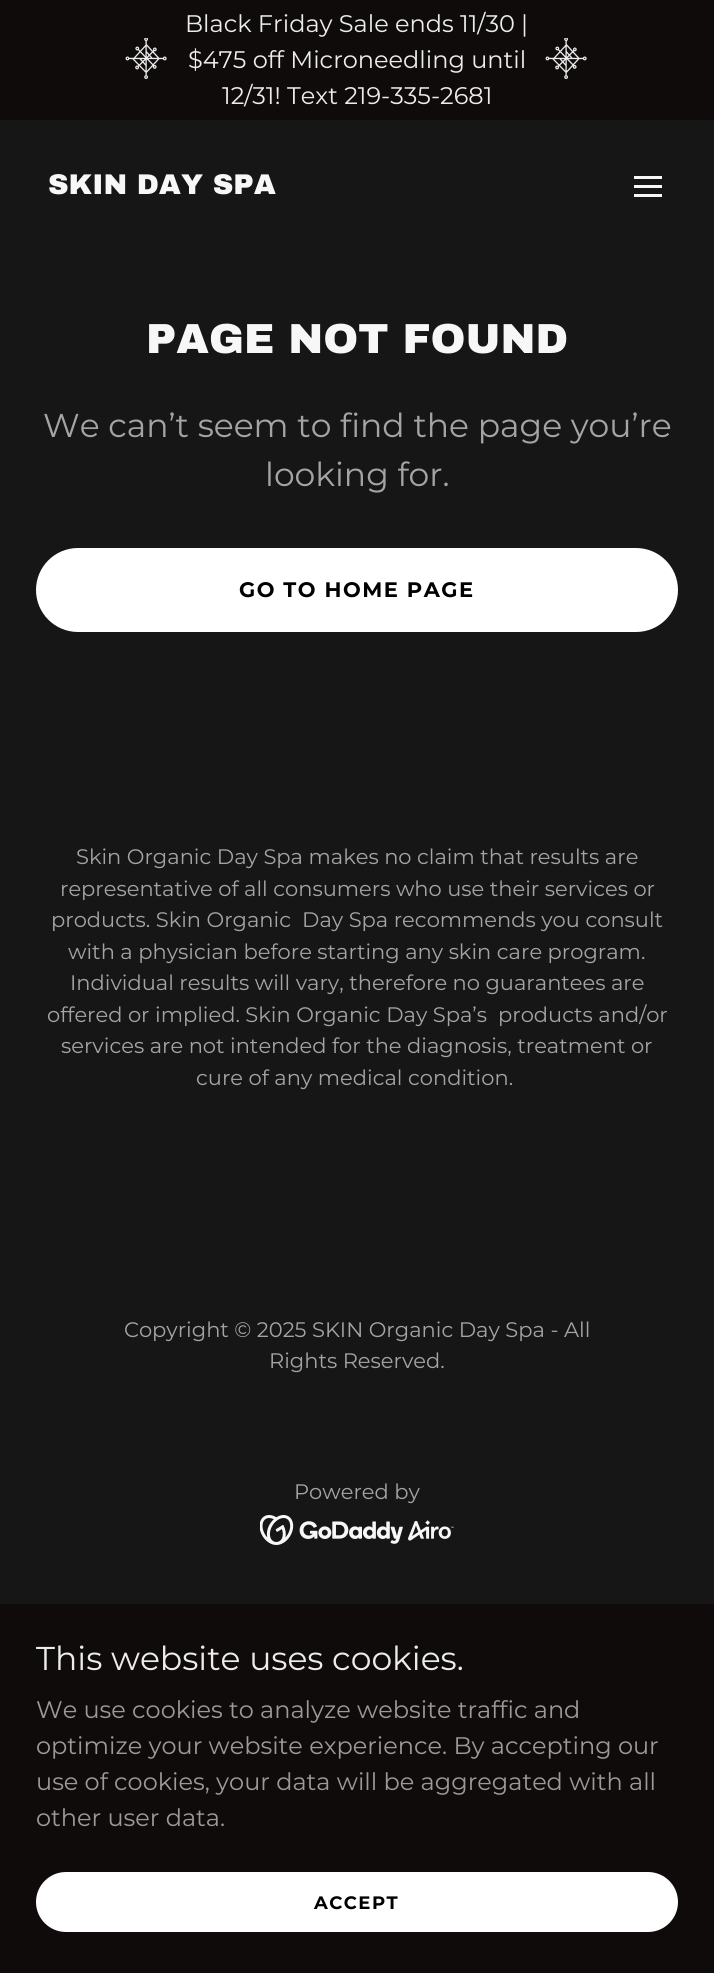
#include <cairo/cairo.h>
#include <math.h>
#include <stddef.h>

typedef struct { double x, y; const char *s; } line_t;
typedef struct { double x, y, w, h; unsigned color; } box_t;
static cairo_t *cr;

static void rgb(unsigned color)
{
	cairo_set_source_rgb(cr, (color >> 16) / 255.0, (color >> 8 & 255) / 255.0, (color & 255) / 255.0);
}

static void tracked(double x, double y, const char *s, double letter, double word)
{
	cairo_move_to(cr, x, y);
	while (*s) {
		char ch[5] = {0};
		int n = 0;
		do ch[n++] = *s++; while ((*s & 0xC0) == 0x80);
		cairo_show_text(cr, ch);
		cairo_rel_move_to(cr, letter + word * (*ch == ' '), 0);
	}
}

static void rrect(double x, double y, double w, double h, double r)
{
	cairo_new_sub_path(cr);
	cairo_arc(cr, x + w - r, y + h - r, r, 0, M_PI / 2);
	cairo_arc(cr, x + r, y + h - r, r, M_PI / 2, M_PI);
	cairo_arc(cr, x + r, y + r, r, M_PI, 1.5 * M_PI);
	cairo_arc(cr, x + w - r, y + r, r, 1.5 * M_PI, 2 * M_PI);
	cairo_close_path(cr);
}

static void image(const char *path, double x, double y, double w, double h)
{
	cairo_surface_t *image = cairo_image_surface_create_from_png(path);
	cairo_save(cr);
	cairo_set_source_surface(cr, image, x, y);
	cairo_rectangle(cr, x, y, w, h);
	cairo_fill(cr);
	cairo_restore(cr);
	cairo_surface_destroy(image);
}

int main(void) {
	cairo_surface_t *surface = cairo_image_surface_create(CAIRO_FORMAT_RGB24, 714, 1973);
	cr = cairo_create(surface);
	cairo_font_options_t *options = cairo_font_options_create();
	cairo_font_options_set_hint_metrics(options, CAIRO_HINT_METRICS_OFF);
	cairo_font_options_set_hint_style(options, CAIRO_HINT_STYLE_NONE);
	cairo_set_font_options(cr, options);
	cairo_set_miter_limit(cr, 4);
	rgb(0x161616);
	cairo_paint(cr);
	rgb(0x0f0b0b);
	cairo_rectangle(cr, 0, 0, 714, 120);
	cairo_fill(cr);
	image("img/1.png", 125, 38, 42, 41);
	image("img/1.png", 545, 38, 42, 41);
	{
		static const box_t items[] = {
			{634, 176, 28, 3, 0xf7f7f7},
			{634, 185, 28, 3, 0xf7f7f7},
			{634, 194, 28, 3, 0xf7f7f7},
		};
		for (size_t i = 0; i < sizeof items / sizeof *items; i++) {
			rgb(items[i].color);
			cairo_rectangle(cr, items[i].x, items[i].y, items[i].w, items[i].h);
			cairo_fill(cr);
		}
	}
	rgb(0xffffff);
	rrect(36, 548, 642, 84, 42);
	cairo_fill(cr);
	image("img/2.png", 260, 1515, 194, 30);
	rgb(0x0f0b0b);
	cairo_rectangle(cr, 0, 1604, 714, 369);
	cairo_fill(cr);
	rgb(0xffffff);
	rrect(36, 1872, 642, 60, 30);
	cairo_fill(cr);
	cairo_select_font_face(cr, "Montserrat", CAIRO_FONT_SLANT_NORMAL, CAIRO_FONT_WEIGHT_NORMAL);
	cairo_set_font_size(cr, 24);
	rgb(0xececec);
	{
		static const line_t items[] = {
			{185, 32, "Black Friday Sale ends 11/30 |"},
			{188, 68, "$475 off Microneedling until"},
			{222, 104, "12/31! Text 219-335-2681"},
		};
		for (size_t i = 0; i < sizeof items / sizeof *items; i++) {
			cairo_move_to(cr, items[i].x, items[i].y);
			cairo_show_text(cr, items[i].s);
		}
	}
	cairo_select_font_face(cr, "Archivo Black Black", CAIRO_FONT_SLANT_NORMAL, CAIRO_FONT_WEIGHT_NORMAL);
	cairo_set_font_size(cr, 28.5);
	rgb(0xf7f7f7);
	cairo_move_to(cr, 48, 194);
	cairo_show_text(cr, "SKIN DAY SPA");
	cairo_set_font_size(cr, 42);
	cairo_move_to(cr, 146, 353);
	cairo_show_text(cr, "PAGE NOT FOUND");
	cairo_select_font_face(cr, "Montserrat", CAIRO_FONT_SLANT_NORMAL, CAIRO_FONT_WEIGHT_NORMAL);
	cairo_set_font_size(cr, 33);
	rgb(0xa4a4a4);
	cairo_move_to(cr, 43, 437);
	cairo_show_text(cr, "We can’t seem to find the page you’re");
	cairo_move_to(cr, 265, 486);
	cairo_show_text(cr, "looking for.");
	cairo_select_font_face(cr, "Montserrat", CAIRO_FONT_SLANT_NORMAL, CAIRO_FONT_WEIGHT_BOLD);
	cairo_set_font_size(cr, 21);
	rgb(0x000000);
	tracked(239, 597, "GO TO HOME PAGE", 1.5, 0);
	cairo_select_font_face(cr, "Montserrat", CAIRO_FONT_SLANT_NORMAL, CAIRO_FONT_WEIGHT_NORMAL);
	rgb(0xa4a4a4);
	{
		static const line_t items[] = {
			{76, 864, "Skin Organic Day Spa makes no claim that results are"},
			{60, 896, "representative of all consumers who use their services or"},
			{51, 927, "products. Skin Organic  Day Spa recommends you consult"},
			{68, 959, "with a physician before starting any skin care program."},
			{70, 990, "Individual results will vary, therefore no guarantees are"},
			{47, 1022, "offered or implied. Skin Organic Day Spa’s  products and/or"},
			{61, 1053, "services are not intended for the diagnosis, treatment or"},
			{196, 1085, "cure of any medical condition."},
			{124, 1337, "Copyright © 2025 SKIN Organic Day Spa - All"},
			{269, 1368, "Rights Reserved."},
			{294, 1499, "Powered by"},
		};
		for (size_t i = 0; i < sizeof items / sizeof *items; i++) {
			cairo_move_to(cr, items[i].x, items[i].y);
			cairo_show_text(cr, items[i].s);
		}
	}
	cairo_set_font_size(cr, 33);
	rgb(0xececec);
	cairo_move_to(cr, 36, 1670);
	cairo_show_text(cr, "This website uses cookies.");
	cairo_set_font_size(cr, 24);
	rgb(0x9e9898);
	{
		static const line_t items[] = {
			{36, 1718, "We use cookies to analyze website traffic and"},
			{36, 1754, "optimize your website experience. By accepting our"},
			{36, 1790, "use of cookies, your data will be aggregated with all"},
			{36, 1826, "other user data."},
		};
		for (size_t i = 0; i < sizeof items / sizeof *items; i++) {
			cairo_move_to(cr, items[i].x, items[i].y);
			cairo_show_text(cr, items[i].s);
		}
	}
	cairo_select_font_face(cr, "Montserrat", CAIRO_FONT_SLANT_NORMAL, CAIRO_FONT_WEIGHT_BOLD);
	cairo_set_font_size(cr, 18);
	rgb(0x000000);
	tracked(314, 1909, "ACCEPT", 1.5, 0);
	cairo_surface_write_to_png(surface, "page.png");
	cairo_font_options_destroy(options);
	cairo_destroy(cr);
	cairo_surface_destroy(surface);
	return 0;
}
